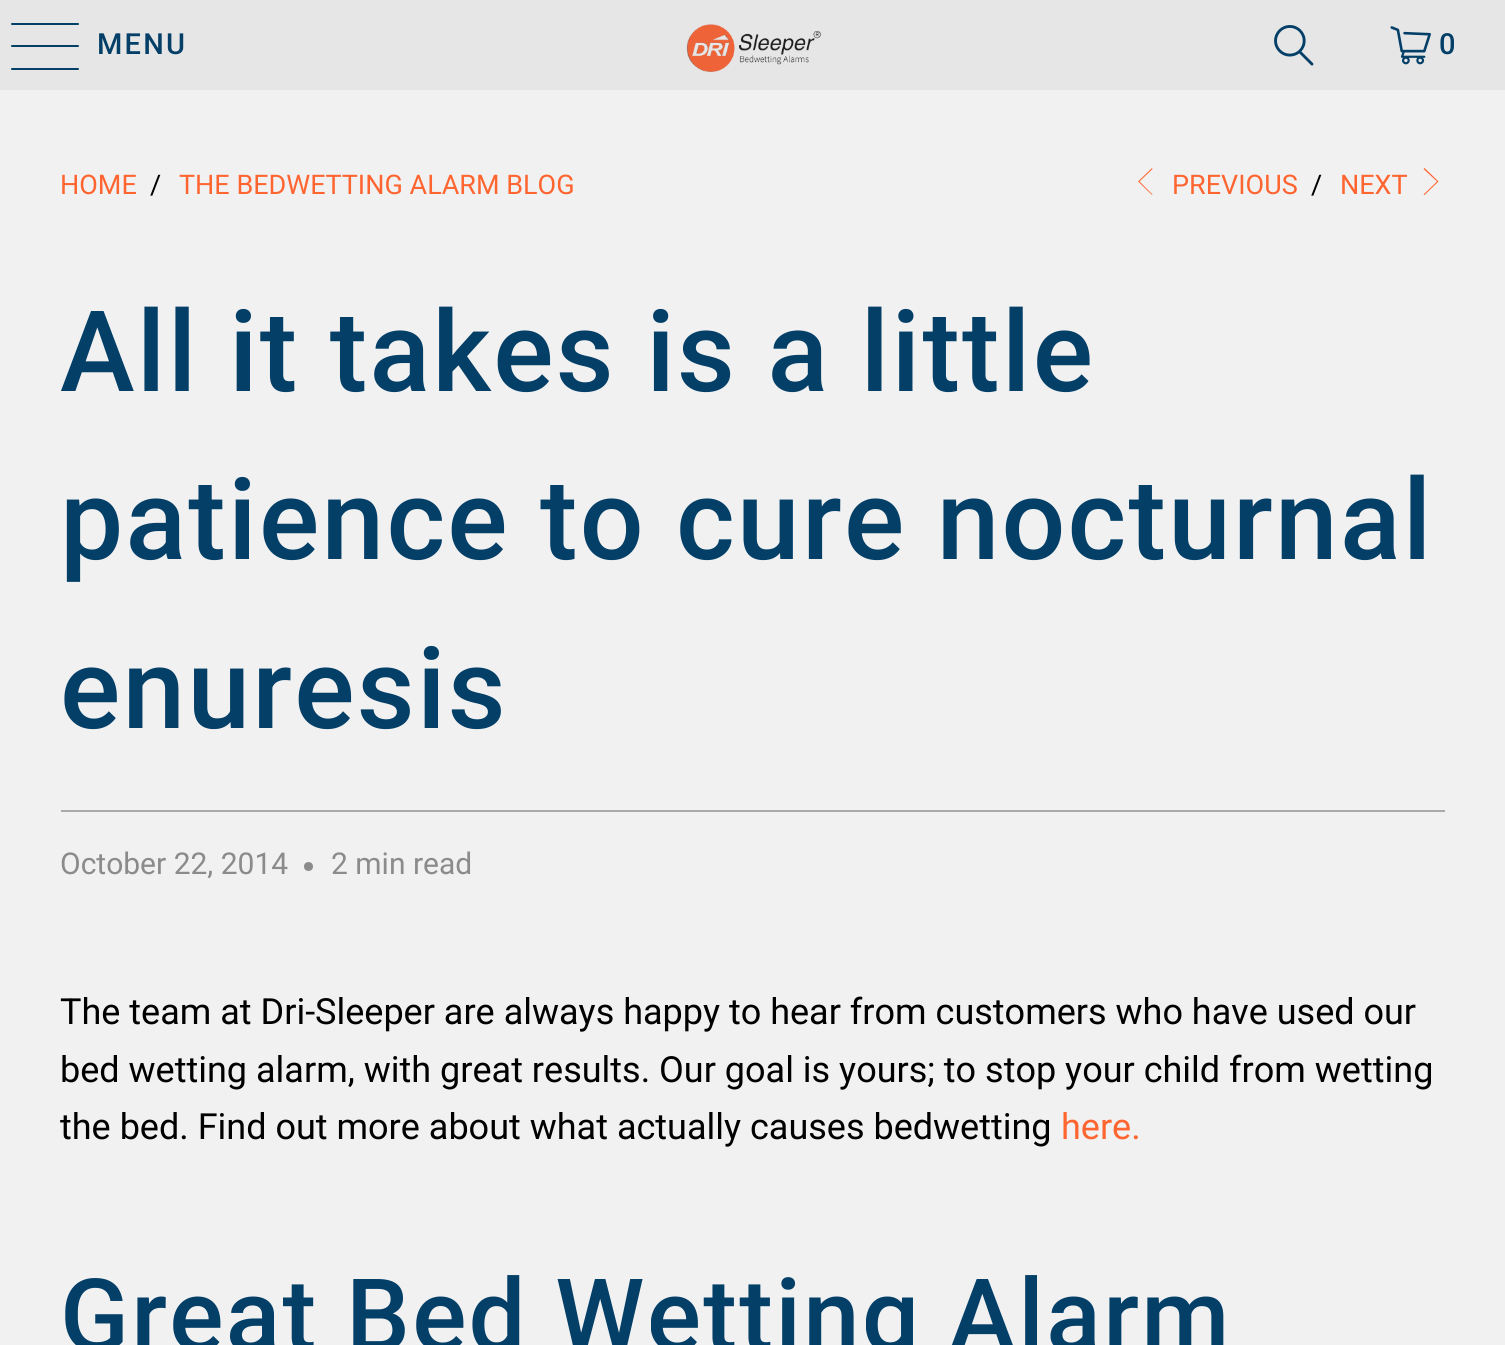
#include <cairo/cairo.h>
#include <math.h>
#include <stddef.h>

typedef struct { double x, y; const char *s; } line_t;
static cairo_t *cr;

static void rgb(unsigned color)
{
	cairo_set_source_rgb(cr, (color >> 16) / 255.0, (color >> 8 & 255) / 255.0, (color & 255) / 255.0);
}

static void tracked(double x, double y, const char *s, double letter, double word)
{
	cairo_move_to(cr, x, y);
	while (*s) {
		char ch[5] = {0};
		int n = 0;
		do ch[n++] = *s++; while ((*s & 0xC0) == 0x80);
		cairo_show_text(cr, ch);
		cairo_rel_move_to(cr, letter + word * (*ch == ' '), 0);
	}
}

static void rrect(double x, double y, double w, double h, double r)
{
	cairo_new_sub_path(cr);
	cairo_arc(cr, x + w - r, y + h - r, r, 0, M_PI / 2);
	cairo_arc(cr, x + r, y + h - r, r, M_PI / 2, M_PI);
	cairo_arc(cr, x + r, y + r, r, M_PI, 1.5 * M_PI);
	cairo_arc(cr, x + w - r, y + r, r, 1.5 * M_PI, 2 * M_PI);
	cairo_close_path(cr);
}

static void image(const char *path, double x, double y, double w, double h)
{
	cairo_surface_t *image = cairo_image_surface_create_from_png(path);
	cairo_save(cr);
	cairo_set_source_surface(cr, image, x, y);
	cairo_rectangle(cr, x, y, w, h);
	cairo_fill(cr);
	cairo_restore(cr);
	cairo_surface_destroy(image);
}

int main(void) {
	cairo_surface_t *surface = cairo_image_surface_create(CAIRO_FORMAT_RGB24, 1505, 1345);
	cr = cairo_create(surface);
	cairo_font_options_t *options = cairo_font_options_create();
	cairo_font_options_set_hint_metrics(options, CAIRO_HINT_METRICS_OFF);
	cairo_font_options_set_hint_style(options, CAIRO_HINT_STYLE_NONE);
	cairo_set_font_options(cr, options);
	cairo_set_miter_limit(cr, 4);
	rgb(0xf1f1f1);
	cairo_paint(cr);
	rgb(0xe6e6e6);
	cairo_rectangle(cr, 0, 0, 1505, 90);
	cairo_fill(cr);
	rgb(0x043f68);
	rrect(11, 23, 68, 2, 1);
	cairo_fill(cr);
	rrect(11, 45, 68, 2, 1);
	cairo_fill(cr);
	rrect(11, 68, 68, 2, 1);
	cairo_fill(cr);
	image("img/1.png", 686, 24, 136, 48);
	image("img/2.png", 1274, 25, 40, 41);
	image("img/3.png", 1390, 26, 41, 39);
	rgb(0xff6530);
	cairo_new_path(cr);
	cairo_move_to(cr, 1152, 195);
	cairo_line_to(cr, 1138, 181.5);
	cairo_line_to(cr, 1152, 168);
	cairo_line_to(cr, 1152.5, 169);
	cairo_line_to(cr, 1139.5, 181.5);
	cairo_line_to(cr, 1152.5, 194.5);
	cairo_close_path(cr);
	cairo_fill(cr);
	cairo_new_path(cr);
	cairo_move_to(cr, 1424.5, 195);
	cairo_line_to(cr, 1423.5, 194.5);
	cairo_line_to(cr, 1437, 181.5);
	cairo_line_to(cr, 1423.5, 169);
	cairo_line_to(cr, 1424.5, 168);
	cairo_line_to(cr, 1438.5, 181.5);
	cairo_close_path(cr);
	cairo_fill(cr);
	rgb(0xaaaaaa);
	cairo_rectangle(cr, 61, 810, 1384, 2);
	cairo_fill(cr);
	rgb(0x8c8b8b);
	cairo_arc(cr, 308.5, 866.5, 4.5, 0, 2 * M_PI);
	cairo_fill(cr);
	cairo_select_font_face(cr, "Roboto Medium", CAIRO_FONT_SLANT_NORMAL, CAIRO_FONT_WEIGHT_NORMAL);
	cairo_set_font_size(cr, 29);
	rgb(0x043f68);
	tracked(97, 54, "MENU", 2.25, 0);
	tracked(1439, 54, "0", 2.25, 0);
	cairo_select_font_face(cr, "Roboto", CAIRO_FONT_SLANT_NORMAL, CAIRO_FONT_WEIGHT_NORMAL);
	cairo_set_font_size(cr, 27);
	rgb(0xff6530);
	cairo_move_to(cr, 60, 194);
	cairo_show_text(cr, "HOME");
	rgb(0x000000);
	cairo_move_to(cr, 150, 194);
	cairo_show_text(cr, "/");
	rgb(0xff6530);
	cairo_move_to(cr, 179, 194);
	cairo_show_text(cr, "THE BEDWETTING ALARM BLOG");
	cairo_move_to(cr, 1172, 194);
	cairo_show_text(cr, "PREVIOUS");
	rgb(0x000000);
	cairo_move_to(cr, 1311, 194);
	cairo_show_text(cr, "/");
	rgb(0xff6530);
	cairo_move_to(cr, 1340, 194);
	cairo_show_text(cr, "NEXT");
	cairo_select_font_face(cr, "Roboto Medium", CAIRO_FONT_SLANT_NORMAL, CAIRO_FONT_WEIGHT_NORMAL);
	cairo_set_font_size(cr, 112.5);
	rgb(0x043f68);
	{
		static const line_t items[] = {
			{60, 391, "All it takes is a little"},
			{60, 559, "patience to cure nocturnal"},
			{60, 728, "enuresis"},
		};
		for (size_t i = 0; i < sizeof items / sizeof *items; i++) {
			tracked(items[i].x, items[i].y, items[i].s, 2.25, 0);
		}
	}
	cairo_select_font_face(cr, "Roboto", CAIRO_FONT_SLANT_NORMAL, CAIRO_FONT_WEIGHT_NORMAL);
	cairo_set_font_size(cr, 30);
	rgb(0x8c8b8b);
	cairo_move_to(cr, 60, 874);
	cairo_show_text(cr, "October 22, 2014");
	cairo_move_to(cr, 331, 874);
	cairo_show_text(cr, "2 min read");
	cairo_set_font_size(cr, 36);
	rgb(0x000000);
	{
		static const line_t items[] = {
			{60, 1024, "The team at Dri-Sleeper are always happy to hear from customers who have used our"},
			{60, 1082, "bed wetting alarm, with great results. Our goal is yours; to stop your child from wetting"},
			{60, 1139, "the bed. Find out more about what actually causes bedwetting"},
		};
		for (size_t i = 0; i < sizeof items / sizeof *items; i++) {
			cairo_move_to(cr, items[i].x, items[i].y);
			cairo_show_text(cr, items[i].s);
		}
	}
	rgb(0xff6530);
	cairo_move_to(cr, 1061, 1139);
	cairo_show_text(cr, "here.");
	cairo_select_font_face(cr, "Roboto Medium", CAIRO_FONT_SLANT_NORMAL, CAIRO_FONT_WEIGHT_NORMAL);
	cairo_set_font_size(cr, 101.25);
	rgb(0x043f68);
	tracked(60, 1351, "Great Bed Wetting Alarm", 2.25, 0);
	cairo_surface_write_to_png(surface, "page.png");
	cairo_font_options_destroy(options);
	cairo_destroy(cr);
	cairo_surface_destroy(surface);
	return 0;
}
